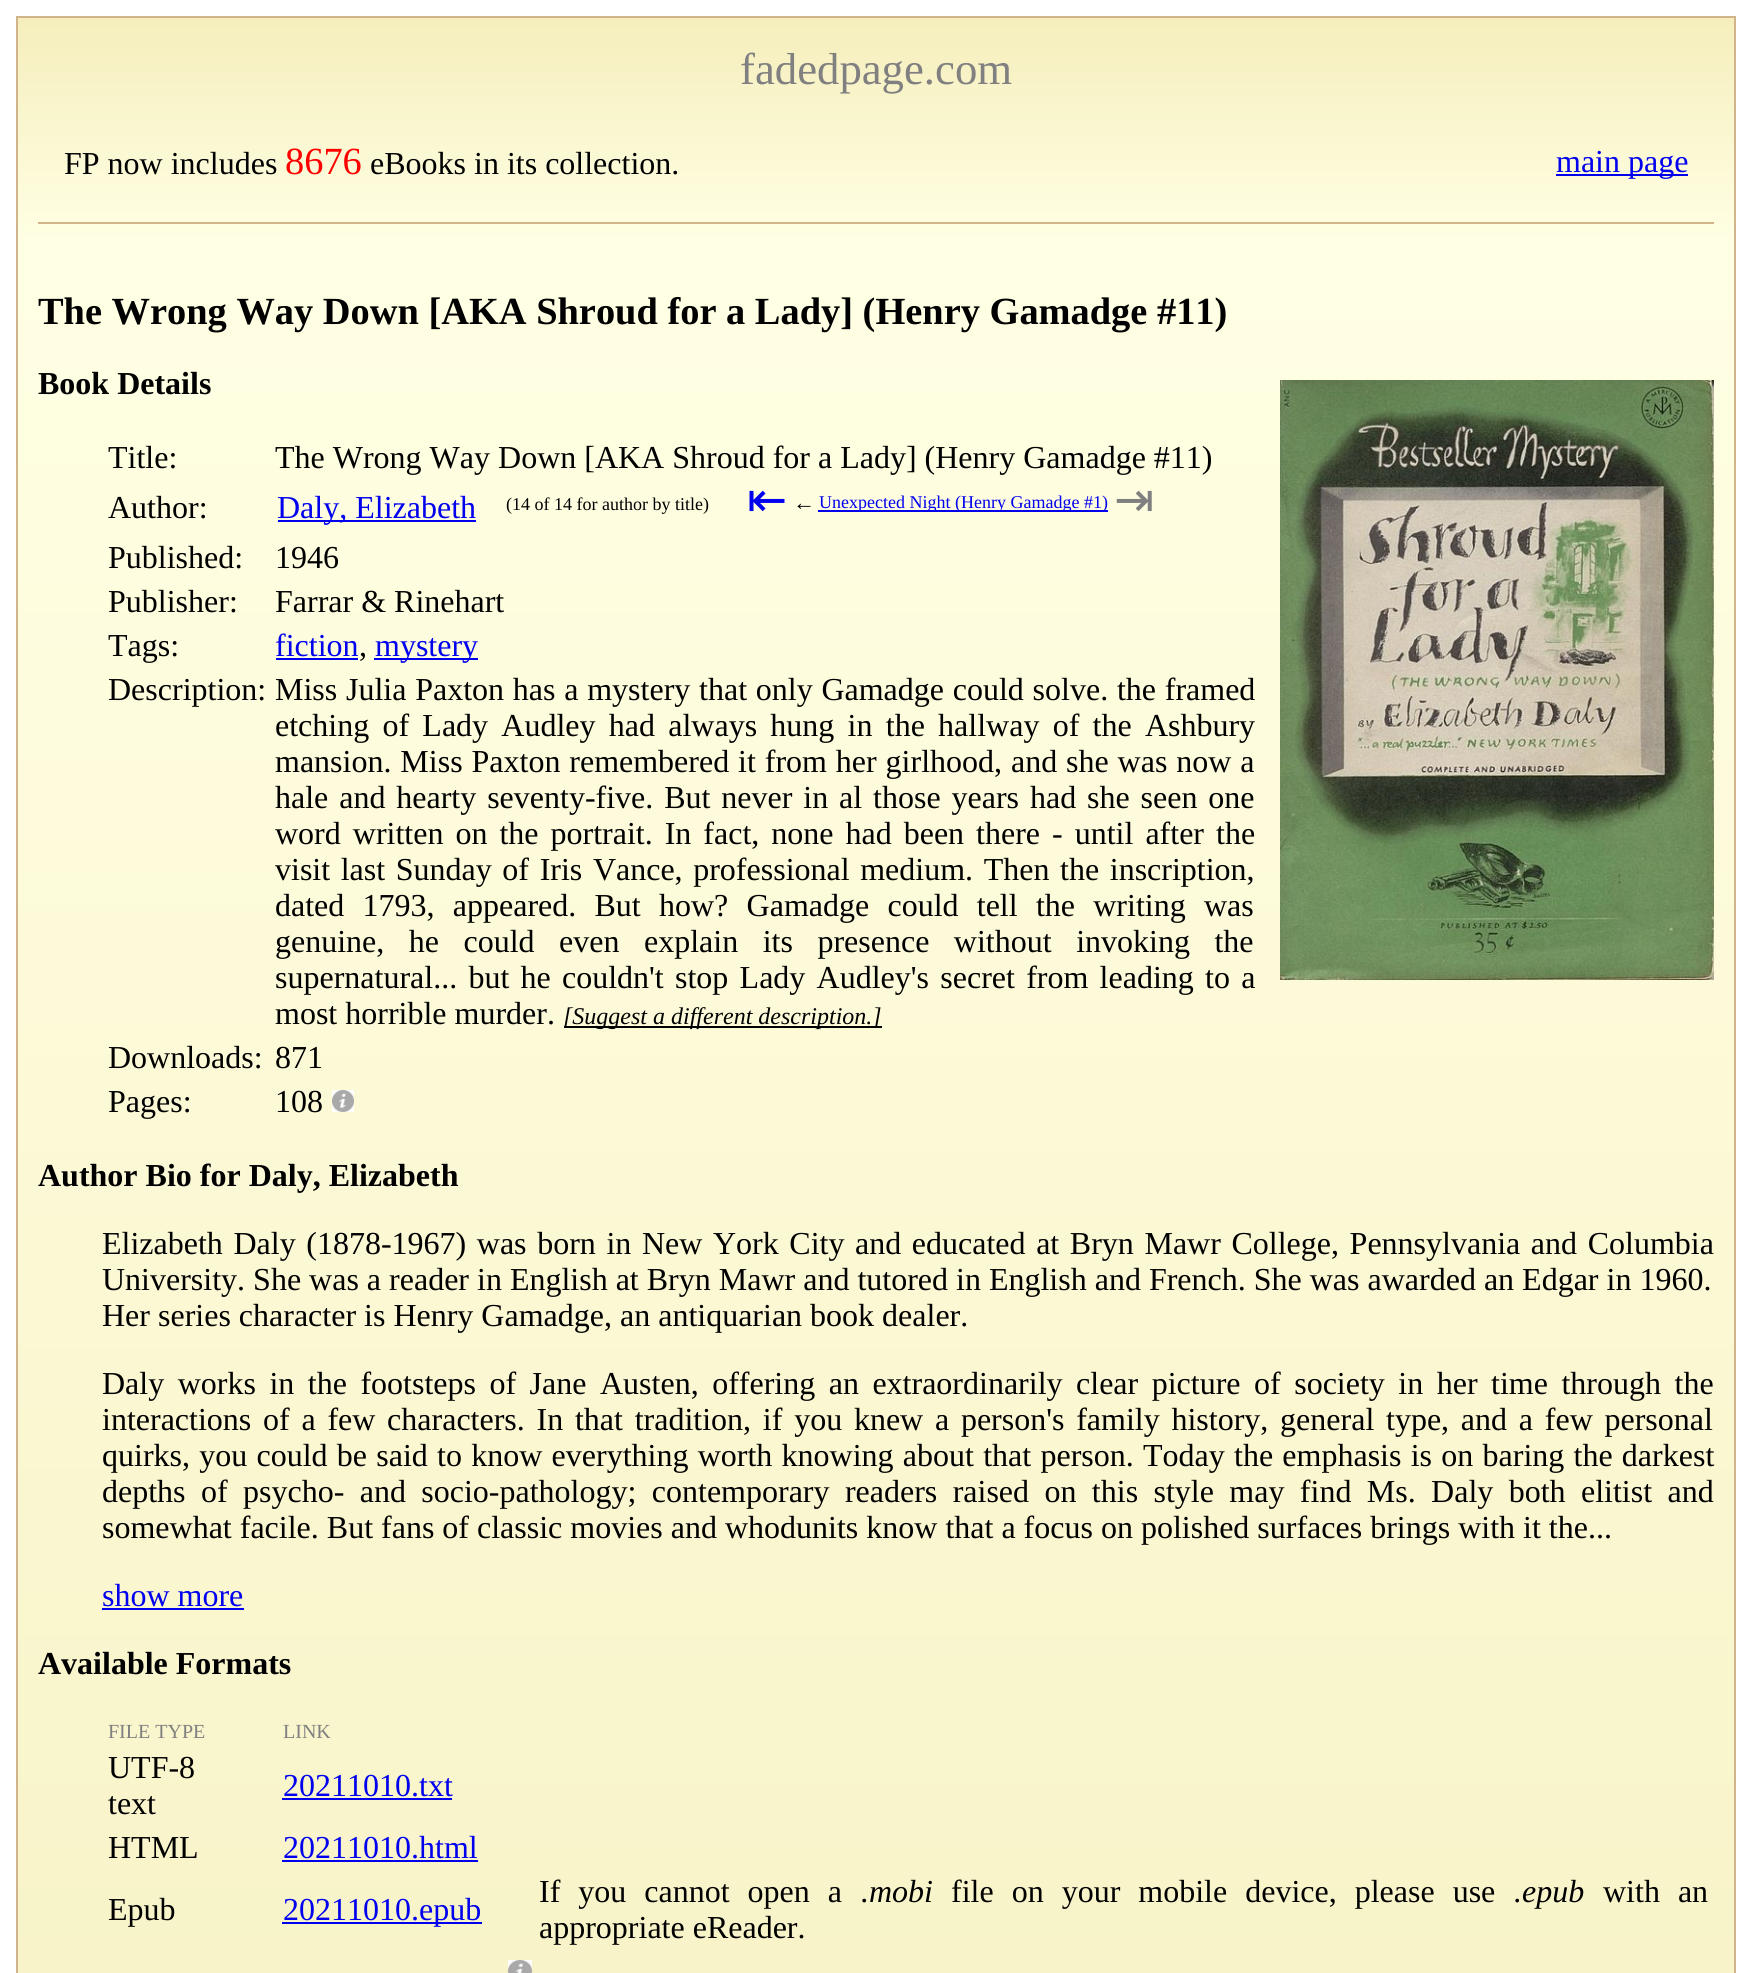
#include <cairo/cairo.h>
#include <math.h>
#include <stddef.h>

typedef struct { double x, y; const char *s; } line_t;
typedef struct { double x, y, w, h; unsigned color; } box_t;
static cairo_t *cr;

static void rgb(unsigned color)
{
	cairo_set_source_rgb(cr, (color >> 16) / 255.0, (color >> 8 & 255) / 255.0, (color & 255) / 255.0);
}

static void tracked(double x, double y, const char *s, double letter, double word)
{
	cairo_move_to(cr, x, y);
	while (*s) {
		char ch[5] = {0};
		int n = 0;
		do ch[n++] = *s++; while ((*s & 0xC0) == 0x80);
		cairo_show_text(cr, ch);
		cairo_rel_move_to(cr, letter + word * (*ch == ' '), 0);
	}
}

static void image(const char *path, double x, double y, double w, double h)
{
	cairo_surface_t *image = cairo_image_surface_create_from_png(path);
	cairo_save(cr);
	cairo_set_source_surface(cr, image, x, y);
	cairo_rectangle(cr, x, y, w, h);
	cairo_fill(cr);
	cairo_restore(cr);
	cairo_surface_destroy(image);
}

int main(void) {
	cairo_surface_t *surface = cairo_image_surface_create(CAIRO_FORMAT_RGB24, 1752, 1973);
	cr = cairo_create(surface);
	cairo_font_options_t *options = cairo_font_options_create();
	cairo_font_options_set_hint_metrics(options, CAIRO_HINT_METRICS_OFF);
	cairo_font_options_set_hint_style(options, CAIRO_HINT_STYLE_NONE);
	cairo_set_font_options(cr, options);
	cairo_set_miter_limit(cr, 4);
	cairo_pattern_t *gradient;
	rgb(0xffffff);
	cairo_paint(cr);
	gradient = cairo_pattern_create_linear(876, 18, 876, 244);
	cairo_pattern_add_color_stop_rgba(gradient, 0, 0.961, 0.933, 0.737, 1);
	cairo_pattern_add_color_stop_rgba(gradient, 1, 1, 1, 0.894, 1);
	cairo_set_source(cr, gradient);
	cairo_pattern_destroy(gradient);
	cairo_rectangle(cr, 18, 18, 1716, 226);
	cairo_fill(cr);
	{
		static const box_t items[] = {
			{16, 16, 1720, 2, 0xd2b48c},
			{1734, 16, 2, 1957, 0xd2b48c},
			{16, 16, 2, 1957, 0xd2b48c},
			{1556, 174, 132, 2, 0x0000ee},
			{38, 222, 1676, 2, 0xd2b48c},
		};
		for (size_t i = 0; i < sizeof items / sizeof *items; i++) {
			rgb(items[i].color);
			cairo_rectangle(cr, items[i].x, items[i].y, items[i].w, items[i].h);
			cairo_fill(cr);
		}
	}
	gradient = cairo_pattern_create_linear(876, 244, 876, 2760);
	cairo_pattern_add_color_stop_rgba(gradient, 0, 1, 1, 0.894, 1);
	cairo_pattern_add_color_stop_rgba(gradient, 1, 0.961, 0.933, 0.737, 1);
	cairo_set_source(cr, gradient);
	cairo_pattern_destroy(gradient);
	cairo_rectangle(cr, 18, 244, 1716, 1729);
	cairo_fill(cr);
	image("img/1.png", 1280, 380, 434, 600);
	{
		static const box_t items[] = {
			{278, 520, 198, 2, 0x0000ee},
			{818, 510, 290, 2, 0x0000ee},
			{276, 658, 82, 2, 0x0000ee},
			{374, 658, 104, 2, 0x0000ee},
			{564, 1026, 318, 2, 0x000000},
		};
		for (size_t i = 0; i < sizeof items / sizeof *items; i++) {
			rgb(items[i].color);
			cairo_rectangle(cr, items[i].x, items[i].y, items[i].w, items[i].h);
			cairo_fill(cr);
		}
	}
	image("img/2.png", 332, 1090, 22, 22);
	{
		static const box_t items[] = {
			{102, 1608, 142, 2, 0x0000ee},
			{282, 1798, 170, 2, 0x0000ee},
			{282, 1860, 196, 2, 0x0000ee},
			{282, 1922, 200, 2, 0x0000ee},
		};
		for (size_t i = 0; i < sizeof items / sizeof *items; i++) {
			rgb(items[i].color);
			cairo_rectangle(cr, items[i].x, items[i].y, items[i].w, items[i].h);
			cairo_fill(cr);
		}
	}
	image("img/3.png", 508, 1960, 24, 13);
	cairo_select_font_face(cr, "Liberation Serif", CAIRO_FONT_SLANT_NORMAL, CAIRO_FONT_WEIGHT_NORMAL);
	cairo_set_font_size(cr, 44.75);
	rgb(0x808080);
	cairo_move_to(cr, 740, 84);
	cairo_show_text(cr, "fadedpage.com");
	cairo_set_font_size(cr, 32);
	rgb(0x000000);
	cairo_move_to(cr, 64, 174);
	cairo_show_text(cr, "FP now includes");
	cairo_set_font_size(cr, 38.4);
	rgb(0xff0000);
	cairo_move_to(cr, 285, 174);
	cairo_show_text(cr, "8676");
	cairo_set_font_size(cr, 32);
	rgb(0x000000);
	cairo_move_to(cr, 370, 174);
	cairo_show_text(cr, "eBooks in its collection.");
	rgb(0x0000ee);
	cairo_move_to(cr, 1556, 172);
	cairo_show_text(cr, "main page");
	cairo_select_font_face(cr, "Liberation Serif", CAIRO_FONT_SLANT_NORMAL, CAIRO_FONT_WEIGHT_BOLD);
	cairo_set_font_size(cr, 38.4);
	rgb(0x000000);
	cairo_move_to(cr, 38, 324);
	cairo_show_text(cr, "The Wrong Way Down [AKA Shroud for a Lady] (Henry Gamadge #11)");
	cairo_set_font_size(cr, 32);
	cairo_move_to(cr, 38, 394);
	cairo_show_text(cr, "Book Details");
	cairo_select_font_face(cr, "Liberation Serif", CAIRO_FONT_SLANT_NORMAL, CAIRO_FONT_WEIGHT_NORMAL);
	{
		static const line_t items[] = {
			{108, 468, "Title:"},
			{275, 468, "The Wrong Way Down [AKA Shroud for a Lady] (Henry Gamadge #11)"},
			{108, 518, "Author:"},
		};
		for (size_t i = 0; i < sizeof items / sizeof *items; i++) {
			cairo_move_to(cr, items[i].x, items[i].y);
			cairo_show_text(cr, items[i].s);
		}
	}
	rgb(0x0000ee);
	cairo_move_to(cr, 277, 518);
	cairo_show_text(cr, "Daly, Elizabeth");
	cairo_set_font_size(cr, 18);
	rgb(0x000000);
	cairo_move_to(cr, 506, 510);
	cairo_show_text(cr, "(14 of 14 for author by title)");
	cairo_select_font_face(cr, "DejaVu Sans", CAIRO_FONT_SLANT_NORMAL, CAIRO_FONT_WEIGHT_NORMAL);
	cairo_set_font_size(cr, 48);
	rgb(0x0000ee);
	cairo_move_to(cr, 747, 516);
	cairo_show_text(cr, "⇤");
	cairo_select_font_face(cr, "Liberation Serif", CAIRO_FONT_SLANT_NORMAL, CAIRO_FONT_WEIGHT_NORMAL);
	cairo_set_font_size(cr, 22);
	rgb(0x000000);
	cairo_move_to(cr, 793, 510);
	cairo_show_text(cr, "←");
	cairo_set_font_size(cr, 18);
	rgb(0x0000ee);
	cairo_move_to(cr, 819, 508);
	cairo_show_text(cr, "Unexpected Night (Henry Gamadge #1)");
	cairo_select_font_face(cr, "DejaVu Sans", CAIRO_FONT_SLANT_NORMAL, CAIRO_FONT_WEIGHT_NORMAL);
	cairo_set_font_size(cr, 48);
	rgb(0x808080);
	cairo_move_to(cr, 1114, 516);
	cairo_show_text(cr, "⇥");
	cairo_select_font_face(cr, "Liberation Serif", CAIRO_FONT_SLANT_NORMAL, CAIRO_FONT_WEIGHT_NORMAL);
	cairo_set_font_size(cr, 32);
	rgb(0x000000);
	{
		static const line_t items[] = {
			{108, 568, "Published:"},
			{275, 568, "1946"},
			{108, 612, "Publisher:"},
			{275, 612, "Farrar & Rinehart"},
			{108, 656, "Tags:"},
		};
		for (size_t i = 0; i < sizeof items / sizeof *items; i++) {
			cairo_move_to(cr, items[i].x, items[i].y);
			cairo_show_text(cr, items[i].s);
		}
	}
	rgb(0x0000ee);
	cairo_move_to(cr, 275, 656);
	cairo_show_text(cr, "fiction");
	rgb(0x000000);
	cairo_move_to(cr, 359, 656);
	cairo_show_text(cr, ",");
	rgb(0x0000ee);
	cairo_move_to(cr, 375, 656);
	cairo_show_text(cr, "mystery");
	rgb(0x000000);
	cairo_move_to(cr, 108, 700);
	cairo_show_text(cr, "Description:");
	tracked(275, 700, "Miss Julia Paxton has a mystery that only Gamadge could solve. the framed", 0, 0.75);
	tracked(275, 736, "etching of Lady Audley had always hung in the hallway of the Ashbury", 0, 5.25);
	tracked(275, 772, "mansion. Miss Paxton remembered it from her girlhood, and she was now a", 0, 0.9);
	tracked(275, 808, "hale and hearty seventy-five. But never in al those years had she seen one", 0, 2.9);
	tracked(275, 844, "word written on the portrait. In fact, none had been there - until after the", 0, 4);
	tracked(275, 880, "visit last Sunday of Iris Vance, professional medium. Then the inscription,", 0, 2.6);
	tracked(275, 916, "dated 1793, appeared. But how? Gamadge could tell the writing was", 0, 10.25);
	tracked(275, 952, "genuine, he could even explain its presence without invoking the", 0, 16.5);
	tracked(275, 988, "supernatural... but he couldn't stop Lady Audley's secret from leading to a", 0, 3.25);
	cairo_move_to(cr, 275, 1024);
	cairo_show_text(cr, "most horrible murder.");
	cairo_select_font_face(cr, "Liberation Serif", CAIRO_FONT_SLANT_ITALIC, CAIRO_FONT_WEIGHT_NORMAL);
	cairo_set_font_size(cr, 24);
	cairo_move_to(cr, 563, 1024);
	cairo_show_text(cr, "[Suggest a different description.]");
	cairo_select_font_face(cr, "Liberation Serif", CAIRO_FONT_SLANT_NORMAL, CAIRO_FONT_WEIGHT_NORMAL);
	cairo_set_font_size(cr, 32);
	{
		static const line_t items[] = {
			{108, 1068, "Downloads:"},
			{275, 1068, "871"},
			{108, 1112, "Pages:"},
			{275, 1112, "108"},
		};
		for (size_t i = 0; i < sizeof items / sizeof *items; i++) {
			cairo_move_to(cr, items[i].x, items[i].y);
			cairo_show_text(cr, items[i].s);
		}
	}
	cairo_select_font_face(cr, "Liberation Serif", CAIRO_FONT_SLANT_NORMAL, CAIRO_FONT_WEIGHT_BOLD);
	cairo_move_to(cr, 38, 1186);
	cairo_show_text(cr, "Author Bio for Daly, Elizabeth");
	cairo_select_font_face(cr, "Liberation Serif", CAIRO_FONT_SLANT_NORMAL, CAIRO_FONT_WEIGHT_NORMAL);
	tracked(102, 1254, "Elizabeth Daly (1878-1967) was born in New York City and educated at Bryn Mawr College, Pennsylvania and Columbia", 0, 2.6);
	cairo_move_to(cr, 102, 1290);
	cairo_show_text(cr, "University. She was a reader in English at Bryn Mawr and tutored in English and French. She was awarded an Edgar in 1960.");
	cairo_move_to(cr, 102, 1326);
	cairo_show_text(cr, "Her series character is Henry Gamadge, an antiquarian book dealer.");
	tracked(102, 1394, "Daly works in the footsteps of Jane Austen, offering an extraordinarily clear picture of society in her time through the", 0, 5.5);
	tracked(102, 1430, "interactions of a few characters. In that tradition, if you knew a person's family history, general type, and a few personal", 0, 3.75);
	tracked(102, 1466, "quirks, you could be said to know everything worth knowing about that person. Today the emphasis is on baring the darkest", 0, 1.25);
	tracked(102, 1502, "depths of psycho- and socio-pathology; contemporary readers raised on this style may find Ms. Daly both elitist and", 0, 7.4);
	cairo_move_to(cr, 102, 1538);
	cairo_show_text(cr, "somewhat facile. But fans of classic movies and whodunits know that a focus on polished surfaces brings with it the...");
	rgb(0x0000ee);
	cairo_move_to(cr, 102, 1606);
	cairo_show_text(cr, "show more");
	cairo_select_font_face(cr, "Liberation Serif", CAIRO_FONT_SLANT_NORMAL, CAIRO_FONT_WEIGHT_BOLD);
	rgb(0x000000);
	cairo_move_to(cr, 38, 1674);
	cairo_show_text(cr, "Available Formats");
	cairo_select_font_face(cr, "Liberation Serif", CAIRO_FONT_SLANT_NORMAL, CAIRO_FONT_WEIGHT_NORMAL);
	cairo_set_font_size(cr, 20);
	rgb(0x808080);
	cairo_move_to(cr, 108, 1738);
	cairo_show_text(cr, "FILE TYPE");
	cairo_move_to(cr, 283, 1738);
	cairo_show_text(cr, "LINK");
	cairo_set_font_size(cr, 32);
	rgb(0x000000);
	cairo_move_to(cr, 108, 1778);
	cairo_show_text(cr, "UTF-8");
	cairo_move_to(cr, 108, 1814);
	cairo_show_text(cr, "text");
	rgb(0x0000ee);
	cairo_move_to(cr, 283, 1796);
	cairo_show_text(cr, "20211010.txt");
	rgb(0x000000);
	cairo_move_to(cr, 108, 1858);
	cairo_show_text(cr, "HTML");
	rgb(0x0000ee);
	cairo_move_to(cr, 283, 1858);
	cairo_show_text(cr, "20211010.html");
	rgb(0x000000);
	cairo_move_to(cr, 108, 1920);
	cairo_show_text(cr, "Epub");
	rgb(0x0000ee);
	cairo_move_to(cr, 283, 1920);
	cairo_show_text(cr, "20211010.epub");
	rgb(0x000000);
	tracked(539, 1902, "If you cannot open a", 0, 10);
	cairo_select_font_face(cr, "Liberation Serif", CAIRO_FONT_SLANT_ITALIC, CAIRO_FONT_WEIGHT_NORMAL);
	cairo_move_to(cr, 861, 1902);
	cairo_show_text(cr, ".mobi");
	cairo_select_font_face(cr, "Liberation Serif", CAIRO_FONT_SLANT_NORMAL, CAIRO_FONT_WEIGHT_NORMAL);
	tracked(951, 1902, "file on your mobile device, please use", 0, 10);
	cairo_select_font_face(cr, "Liberation Serif", CAIRO_FONT_SLANT_ITALIC, CAIRO_FONT_WEIGHT_NORMAL);
	cairo_move_to(cr, 1514, 1902);
	cairo_show_text(cr, ".epub");
	cairo_select_font_face(cr, "Liberation Serif", CAIRO_FONT_SLANT_NORMAL, CAIRO_FONT_WEIGHT_NORMAL);
	tracked(1603, 1902, "with an", 0, 10);
	cairo_move_to(cr, 539, 1938);
	cairo_show_text(cr, "appropriate eReader.");
	cairo_surface_write_to_png(surface, "page.png");
	cairo_font_options_destroy(options);
	cairo_destroy(cr);
	cairo_surface_destroy(surface);
	return 0;
}
